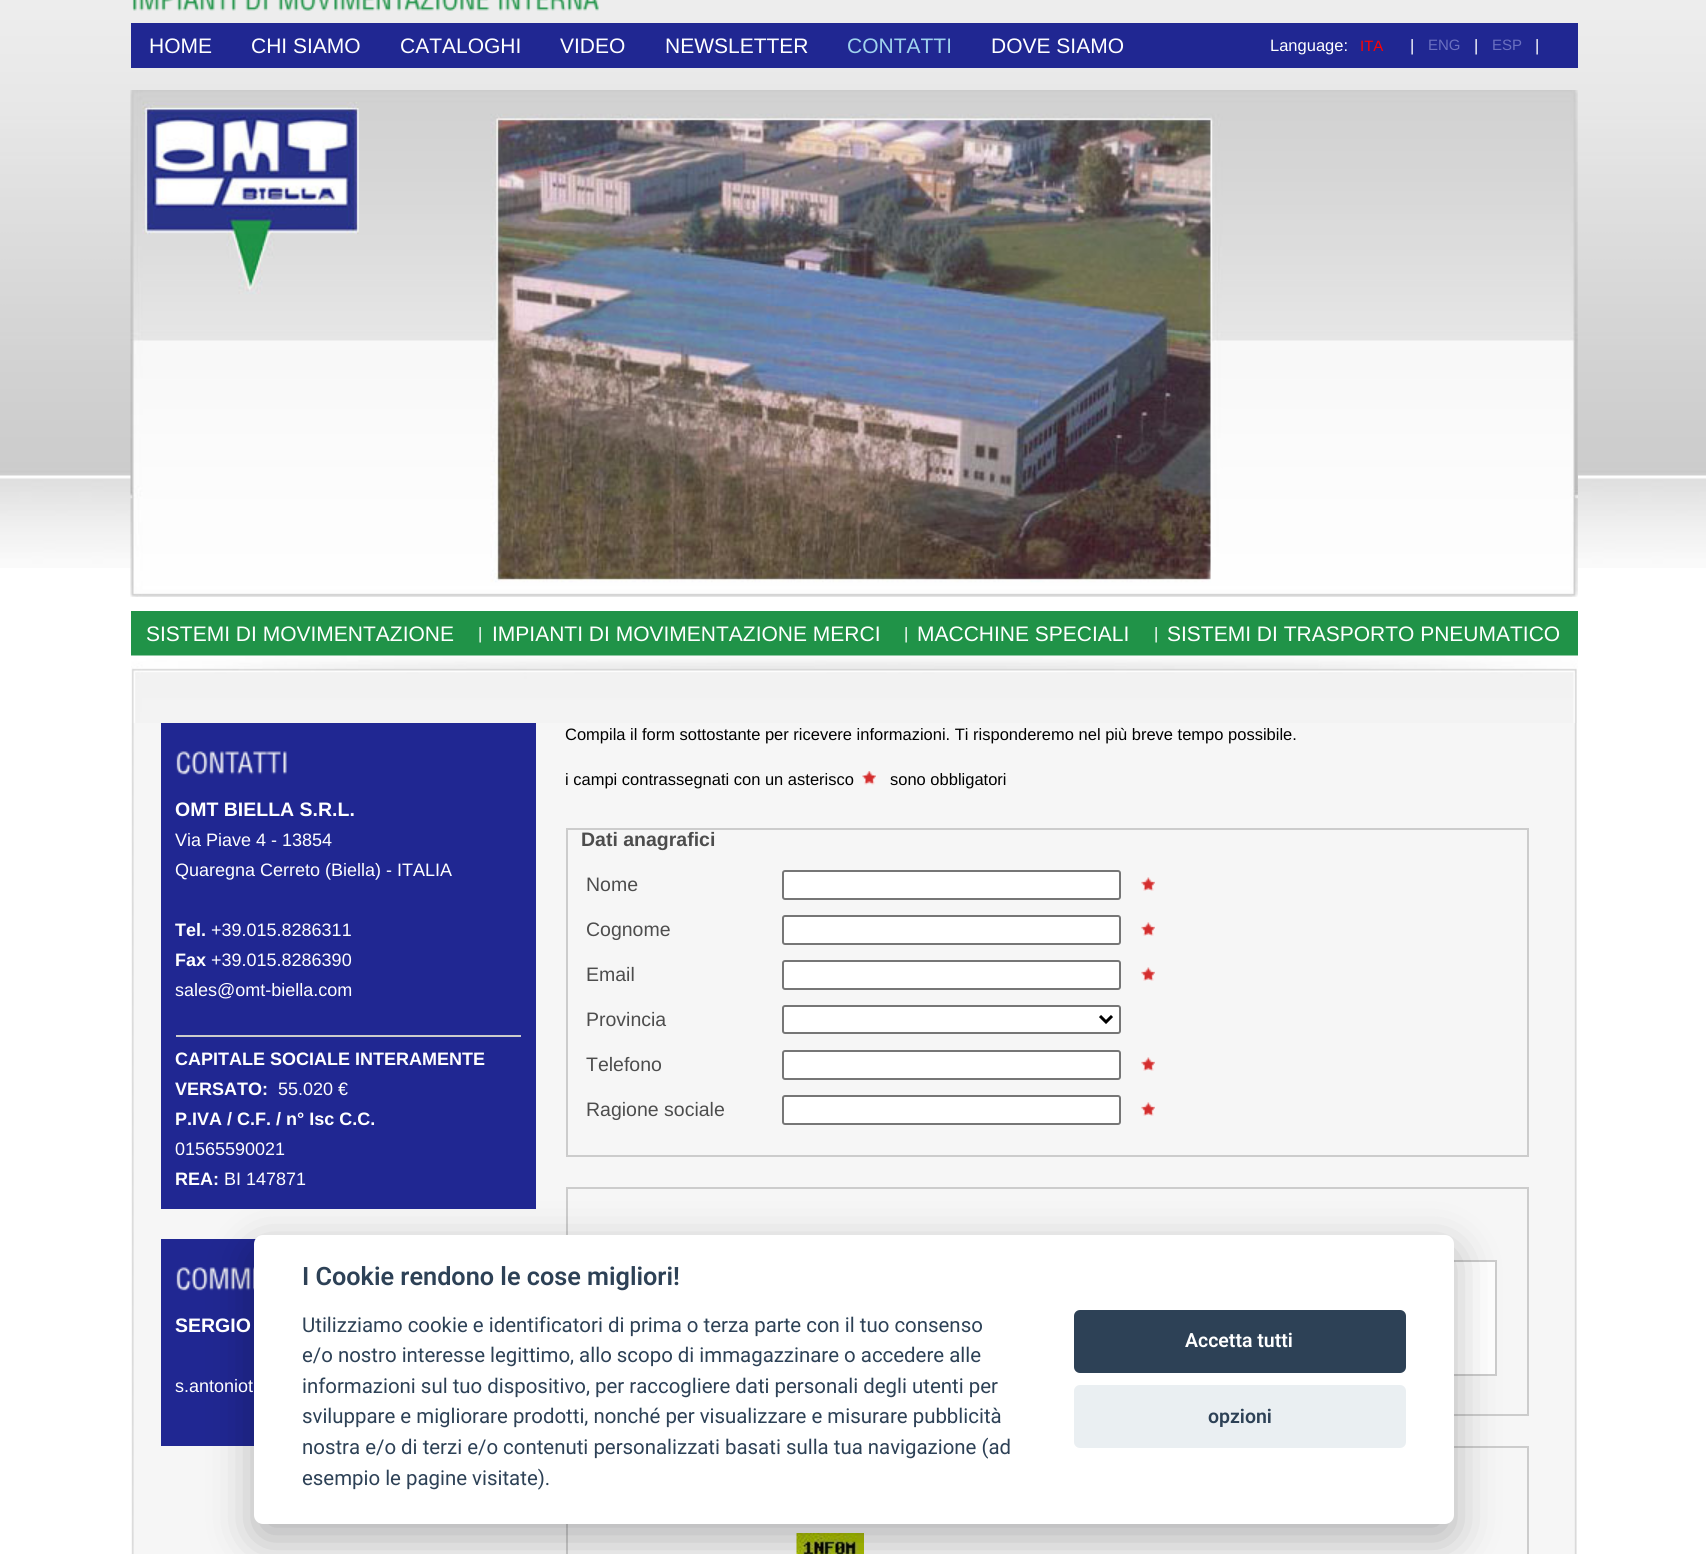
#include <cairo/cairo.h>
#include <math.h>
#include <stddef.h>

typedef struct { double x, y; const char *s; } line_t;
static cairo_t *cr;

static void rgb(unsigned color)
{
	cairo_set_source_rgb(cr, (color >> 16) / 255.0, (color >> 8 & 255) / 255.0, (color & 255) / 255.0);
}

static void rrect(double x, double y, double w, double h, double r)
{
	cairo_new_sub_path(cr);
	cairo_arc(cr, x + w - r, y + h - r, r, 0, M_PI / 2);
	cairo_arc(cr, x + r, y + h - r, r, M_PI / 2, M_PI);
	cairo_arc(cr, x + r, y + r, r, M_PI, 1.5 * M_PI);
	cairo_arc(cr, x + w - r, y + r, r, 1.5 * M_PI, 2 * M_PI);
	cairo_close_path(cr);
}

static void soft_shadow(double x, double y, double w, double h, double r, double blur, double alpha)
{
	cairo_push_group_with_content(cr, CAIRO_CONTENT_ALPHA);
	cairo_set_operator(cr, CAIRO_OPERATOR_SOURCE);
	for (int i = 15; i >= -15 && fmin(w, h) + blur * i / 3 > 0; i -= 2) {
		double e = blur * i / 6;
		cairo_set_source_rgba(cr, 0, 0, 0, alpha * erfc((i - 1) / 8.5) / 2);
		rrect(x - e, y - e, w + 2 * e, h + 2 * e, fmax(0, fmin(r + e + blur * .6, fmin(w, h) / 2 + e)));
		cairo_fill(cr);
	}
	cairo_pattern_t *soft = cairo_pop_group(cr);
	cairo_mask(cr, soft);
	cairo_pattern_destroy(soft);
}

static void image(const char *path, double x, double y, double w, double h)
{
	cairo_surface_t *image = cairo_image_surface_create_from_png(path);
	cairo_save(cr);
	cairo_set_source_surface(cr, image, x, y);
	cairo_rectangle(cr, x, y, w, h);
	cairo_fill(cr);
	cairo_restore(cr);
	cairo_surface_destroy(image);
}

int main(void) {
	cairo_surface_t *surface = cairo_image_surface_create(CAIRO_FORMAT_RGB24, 1706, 1554);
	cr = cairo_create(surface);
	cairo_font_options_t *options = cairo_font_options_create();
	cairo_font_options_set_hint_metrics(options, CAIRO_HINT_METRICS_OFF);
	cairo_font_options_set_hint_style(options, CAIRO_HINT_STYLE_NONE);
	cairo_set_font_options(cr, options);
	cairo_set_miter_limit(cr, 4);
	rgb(0xffffff);
	cairo_paint(cr);
	image("img/1.png", 0, 0, 1706, 568);
	image("img/2.png", 132, 0, 104, 11);
	image("img/3.png", 245, 0, 23, 11);
	image("img/4.png", 278, 0, 212, 11);
	image("img/5.png", 498, 0, 101, 11);
	rgb(0x202792);
	cairo_rectangle(cr, 131, 23, 1447, 45);
	cairo_fill(cr);
	image("img/6.png", 130, 90, 1448, 507);
	rgb(0x209348);
	cairo_rectangle(cr, 131, 611, 1447, 45);
	cairo_fill(cr);
	image("img/7.png", 131, 655, 1447, 68);
	image("img/8.png", 131, 723, 1446, 831);
	rgb(0x202792);
	cairo_rectangle(cr, 161, 723, 375, 486);
	cairo_fill(cr);
	image("img/9.png", 176, 751, 111, 24);
	rgb(0xcccccc);
	cairo_rectangle(cr, 176, 1035, 345, 2);
	cairo_fill(cr);
	rgb(0x202792);
	cairo_rectangle(cr, 161, 1239, 95, 207);
	cairo_fill(cr);
	image("img/10.png", 176, 1267, 78, 24);
	image("img/11.png", 862, 771, 14, 14);
	cairo_rectangle(cr, 567, 829, 961, 327);
	rgb(0xcccccc);
	cairo_stroke(cr);
	rgb(0xffffff);
	rrect(783, 871, 337, 28, 2);
	cairo_fill_preserve(cr);
	rgb(0x767676);
	cairo_stroke(cr);
	image("img/12.png", 1141, 877, 14, 14);
	rgb(0xffffff);
	rrect(783, 916, 337, 28, 2);
	cairo_fill_preserve(cr);
	rgb(0x767676);
	cairo_stroke(cr);
	image("img/12.png", 1141, 922, 14, 14);
	rgb(0xffffff);
	rrect(783, 961, 337, 28, 2);
	cairo_fill_preserve(cr);
	rgb(0x767676);
	cairo_stroke(cr);
	image("img/12.png", 1141, 967, 14, 14);
	rgb(0xffffff);
	rrect(783, 1006, 337, 27, 2);
	cairo_fill_preserve(cr);
	rgb(0x767676);
	cairo_stroke(cr);
	cairo_new_path(cr);
	cairo_move_to(cr, 1100, 1016);
	cairo_line_to(cr, 1106, 1022);
	cairo_line_to(cr, 1112, 1016);
	rgb(0x000000);
	cairo_set_line_width(cr, 3);
	cairo_stroke(cr);
	rgb(0xffffff);
	rrect(783, 1051, 337, 28, 2);
	cairo_fill_preserve(cr);
	rgb(0x767676);
	cairo_set_line_width(cr, 2);
	cairo_stroke(cr);
	image("img/12.png", 1141, 1057, 14, 14);
	rgb(0xffffff);
	rrect(783, 1096, 337, 28, 2);
	cairo_fill_preserve(cr);
	rgb(0x767676);
	cairo_stroke(cr);
	image("img/12.png", 1141, 1102, 14, 14);
	cairo_rectangle(cr, 567, 1188, 961, 227);
	rgb(0xcccccc);
	cairo_stroke(cr);
	rgb(0xffffff);
	cairo_rectangle(cr, 1454, 1262, 41, 112);
	cairo_fill(cr);
	cairo_rectangle(cr, 603, 1261, 893, 114);
	rgb(0xcccccc);
	cairo_stroke(cr);
	cairo_rectangle(cr, 567, 1447, 961, 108);
	cairo_stroke(cr);
	image("img/13.png", 796, 1533, 68, 21);
	rgb(0x020203);
	soft_shadow(254, 1250, 1200, 289, 9, 22.5, 0.28);
	rgb(0xffffff);
	rrect(254, 1235, 1200, 289, 9);
	cairo_fill(cr);
	rgb(0x2d4156);
	rrect(1074, 1310, 332, 63, 6);
	cairo_fill(cr);
	rgb(0xeaeff2);
	rrect(1074, 1385, 332, 63, 6);
	cairo_fill(cr);
	cairo_select_font_face(cr, "Liberation Sans", CAIRO_FONT_SLANT_NORMAL, CAIRO_FONT_WEIGHT_NORMAL);
	cairo_set_font_size(cr, 21);
	rgb(0xffffff);
	{
		static const line_t items[] = {
			{149, 53, "HOME"},
			{251, 53, "CHI SIAMO"},
			{400, 53, "CATALOGHI"},
			{560, 53, "VIDEO"},
			{665, 53, "NEWSLETTER"},
		};
		for (size_t i = 0; i < sizeof items / sizeof *items; i++) {
			cairo_move_to(cr, items[i].x, items[i].y);
			cairo_show_text(cr, items[i].s);
		}
	}
	rgb(0x9fd3ed);
	cairo_move_to(cr, 847, 53);
	cairo_show_text(cr, "CONTATTI");
	rgb(0xffffff);
	cairo_move_to(cr, 991, 53);
	cairo_show_text(cr, "DOVE SIAMO");
	cairo_set_font_size(cr, 16.5);
	cairo_move_to(cr, 1270, 51);
	cairo_show_text(cr, "Language:");
	cairo_set_font_size(cr, 15);
	rgb(0xff0000);
	cairo_move_to(cr, 1360, 51);
	cairo_show_text(cr, "ITA");
	cairo_set_font_size(cr, 16.5);
	rgb(0xffffff);
	cairo_move_to(cr, 1410, 51);
	cairo_show_text(cr, "|");
	cairo_set_font_size(cr, 15);
	rgb(0x6b70c0);
	cairo_move_to(cr, 1428, 50);
	cairo_show_text(cr, "ENG");
	cairo_set_font_size(cr, 16.5);
	rgb(0xffffff);
	cairo_move_to(cr, 1474, 51);
	cairo_show_text(cr, "|");
	cairo_set_font_size(cr, 15);
	rgb(0x6b70c0);
	cairo_move_to(cr, 1492, 50);
	cairo_show_text(cr, "ESP");
	cairo_set_font_size(cr, 16.5);
	rgb(0xffffff);
	cairo_move_to(cr, 1535, 51);
	cairo_show_text(cr, "|");
	cairo_set_font_size(cr, 21);
	cairo_move_to(cr, 146, 641);
	cairo_show_text(cr, "SISTEMI DI MOVIMENTAZIONE");
	cairo_set_font_size(cr, 16.5);
	cairo_move_to(cr, 478, 639);
	cairo_show_text(cr, "|");
	cairo_set_font_size(cr, 21);
	cairo_move_to(cr, 492, 641);
	cairo_show_text(cr, "IMPIANTI DI MOVIMENTAZIONE MERCI");
	cairo_set_font_size(cr, 16.5);
	cairo_move_to(cr, 904, 639);
	cairo_show_text(cr, "|");
	cairo_set_font_size(cr, 21);
	cairo_move_to(cr, 917, 641);
	cairo_show_text(cr, "MACCHINE SPECIALI");
	cairo_set_font_size(cr, 16.5);
	cairo_move_to(cr, 1154, 639);
	cairo_show_text(cr, "|");
	cairo_set_font_size(cr, 21);
	cairo_move_to(cr, 1167, 641);
	cairo_show_text(cr, "SISTEMI DI TRASPORTO PNEUMATICO");
	cairo_select_font_face(cr, "Liberation Sans", CAIRO_FONT_SLANT_NORMAL, CAIRO_FONT_WEIGHT_BOLD);
	cairo_set_font_size(cr, 19.5);
	cairo_move_to(cr, 175, 816);
	cairo_show_text(cr, "OMT BIELLA S.R.L.");
	cairo_select_font_face(cr, "Liberation Sans", CAIRO_FONT_SLANT_NORMAL, CAIRO_FONT_WEIGHT_NORMAL);
	cairo_set_font_size(cr, 18);
	cairo_move_to(cr, 175, 846);
	cairo_show_text(cr, "Via Piave 4 - 13854");
	cairo_move_to(cr, 175, 876);
	cairo_show_text(cr, "Quaregna Cerreto (Biella) - ITALIA");
	cairo_select_font_face(cr, "Liberation Sans", CAIRO_FONT_SLANT_NORMAL, CAIRO_FONT_WEIGHT_BOLD);
	cairo_move_to(cr, 175, 936);
	cairo_show_text(cr, "Tel.");
	cairo_select_font_face(cr, "Liberation Sans", CAIRO_FONT_SLANT_NORMAL, CAIRO_FONT_WEIGHT_NORMAL);
	cairo_move_to(cr, 211, 936);
	cairo_show_text(cr, "+39.015.8286311");
	cairo_select_font_face(cr, "Liberation Sans", CAIRO_FONT_SLANT_NORMAL, CAIRO_FONT_WEIGHT_BOLD);
	cairo_move_to(cr, 175, 966);
	cairo_show_text(cr, "Fax");
	cairo_select_font_face(cr, "Liberation Sans", CAIRO_FONT_SLANT_NORMAL, CAIRO_FONT_WEIGHT_NORMAL);
	cairo_move_to(cr, 211, 966);
	cairo_show_text(cr, "+39.015.8286390");
	cairo_move_to(cr, 175, 996);
	cairo_show_text(cr, "sales@omt-biella.com");
	cairo_select_font_face(cr, "Liberation Sans", CAIRO_FONT_SLANT_NORMAL, CAIRO_FONT_WEIGHT_BOLD);
	cairo_move_to(cr, 175, 1065);
	cairo_show_text(cr, "CAPITALE SOCIALE INTERAMENTE");
	cairo_move_to(cr, 175, 1095);
	cairo_show_text(cr, "VERSATO:");
	cairo_select_font_face(cr, "Liberation Sans", CAIRO_FONT_SLANT_NORMAL, CAIRO_FONT_WEIGHT_NORMAL);
	cairo_move_to(cr, 278, 1095);
	cairo_show_text(cr, "55.020 €");
	cairo_select_font_face(cr, "Liberation Sans", CAIRO_FONT_SLANT_NORMAL, CAIRO_FONT_WEIGHT_BOLD);
	cairo_move_to(cr, 175, 1125);
	cairo_show_text(cr, "P.IVA / C.F. / n° Isc C.C.");
	cairo_select_font_face(cr, "Liberation Sans", CAIRO_FONT_SLANT_NORMAL, CAIRO_FONT_WEIGHT_NORMAL);
	cairo_move_to(cr, 175, 1155);
	cairo_show_text(cr, "01565590021");
	cairo_select_font_face(cr, "Liberation Sans", CAIRO_FONT_SLANT_NORMAL, CAIRO_FONT_WEIGHT_BOLD);
	cairo_move_to(cr, 175, 1185);
	cairo_show_text(cr, "REA:");
	cairo_select_font_face(cr, "Liberation Sans", CAIRO_FONT_SLANT_NORMAL, CAIRO_FONT_WEIGHT_NORMAL);
	cairo_move_to(cr, 224, 1185);
	cairo_show_text(cr, "BI 147871");
	cairo_select_font_face(cr, "Liberation Sans", CAIRO_FONT_SLANT_NORMAL, CAIRO_FONT_WEIGHT_BOLD);
	cairo_set_font_size(cr, 19.5);
	cairo_move_to(cr, 175, 1332);
	cairo_show_text(cr, "SERGIO");
	cairo_select_font_face(cr, "Liberation Sans", CAIRO_FONT_SLANT_NORMAL, CAIRO_FONT_WEIGHT_NORMAL);
	cairo_set_font_size(cr, 18);
	cairo_move_to(cr, 175, 1392);
	cairo_show_text(cr, "s.antoniot");
	cairo_set_font_size(cr, 16.5);
	rgb(0x000000);
	{
		static const line_t items[] = {
			{565, 740, "Compila il form sottostante per ricevere informazioni. Ti risponderemo nel più breve tempo possibile."},
			{565, 785, "i campi contrassegnati con un asterisco"},
			{890, 785, "sono obbligatori"},
		};
		for (size_t i = 0; i < sizeof items / sizeof *items; i++) {
			cairo_move_to(cr, items[i].x, items[i].y);
			cairo_show_text(cr, items[i].s);
		}
	}
	cairo_select_font_face(cr, "Liberation Sans", CAIRO_FONT_SLANT_NORMAL, CAIRO_FONT_WEIGHT_BOLD);
	cairo_set_font_size(cr, 19.5);
	rgb(0x4d4d4d);
	cairo_move_to(cr, 581, 846);
	cairo_show_text(cr, "Dati anagrafici");
	cairo_select_font_face(cr, "Liberation Sans", CAIRO_FONT_SLANT_NORMAL, CAIRO_FONT_WEIGHT_NORMAL);
	{
		static const line_t items[] = {
			{586, 891, "Nome"},
			{586, 936, "Cognome"},
			{586, 981, "Email"},
			{586, 1026, "Provincia"},
			{586, 1071, "Telefono"},
			{586, 1116, "Ragione sociale"},
		};
		for (size_t i = 0; i < sizeof items / sizeof *items; i++) {
			cairo_move_to(cr, items[i].x, items[i].y);
			cairo_show_text(cr, items[i].s);
		}
	}
	cairo_select_font_face(cr, "Roboto SemiBold", CAIRO_FONT_SLANT_NORMAL, CAIRO_FONT_WEIGHT_NORMAL);
	cairo_set_font_size(cr, 25.25);
	rgb(0x2d4156);
	cairo_move_to(cr, 302, 1285);
	cairo_show_text(cr, "I Cookie rendono le cose migliori!");
	cairo_select_font_face(cr, "Roboto", CAIRO_FONT_SLANT_NORMAL, CAIRO_FONT_WEIGHT_NORMAL);
	cairo_set_font_size(cr, 20.4);
	{
		static const line_t items[] = {
			{302, 1332, "Utilizziamo cookie e identificatori di prima o terza parte con il tuo consenso"},
			{302, 1362, "e/o nostro interesse legittimo, allo scopo di immagazzinare o accedere alle"},
			{302, 1393, "informazioni sul tuo dispositivo, per raccogliere dati personali degli utenti per"},
			{302, 1423, "sviluppare e migliorare prodotti, nonché per visualizzare e misurare pubblicità"},
			{302, 1454, "nostra e/o di terzi e/o contenuti personalizzati basati sulla tua navigazione (ad"},
			{302, 1485, "esempio le pagine visitate)."},
		};
		for (size_t i = 0; i < sizeof items / sizeof *items; i++) {
			cairo_move_to(cr, items[i].x, items[i].y);
			cairo_show_text(cr, items[i].s);
		}
	}
	cairo_select_font_face(cr, "Roboto SemiBold", CAIRO_FONT_SLANT_NORMAL, CAIRO_FONT_WEIGHT_NORMAL);
	cairo_set_font_size(cr, 19.5);
	rgb(0xffffff);
	cairo_move_to(cr, 1185, 1347);
	cairo_show_text(cr, "Accetta tutti");
	rgb(0x2d4156);
	cairo_move_to(cr, 1208, 1423);
	cairo_show_text(cr, "opzioni");
	cairo_surface_write_to_png(surface, "page.png");
	cairo_font_options_destroy(options);
	cairo_destroy(cr);
	cairo_surface_destroy(surface);
	return 0;
}
